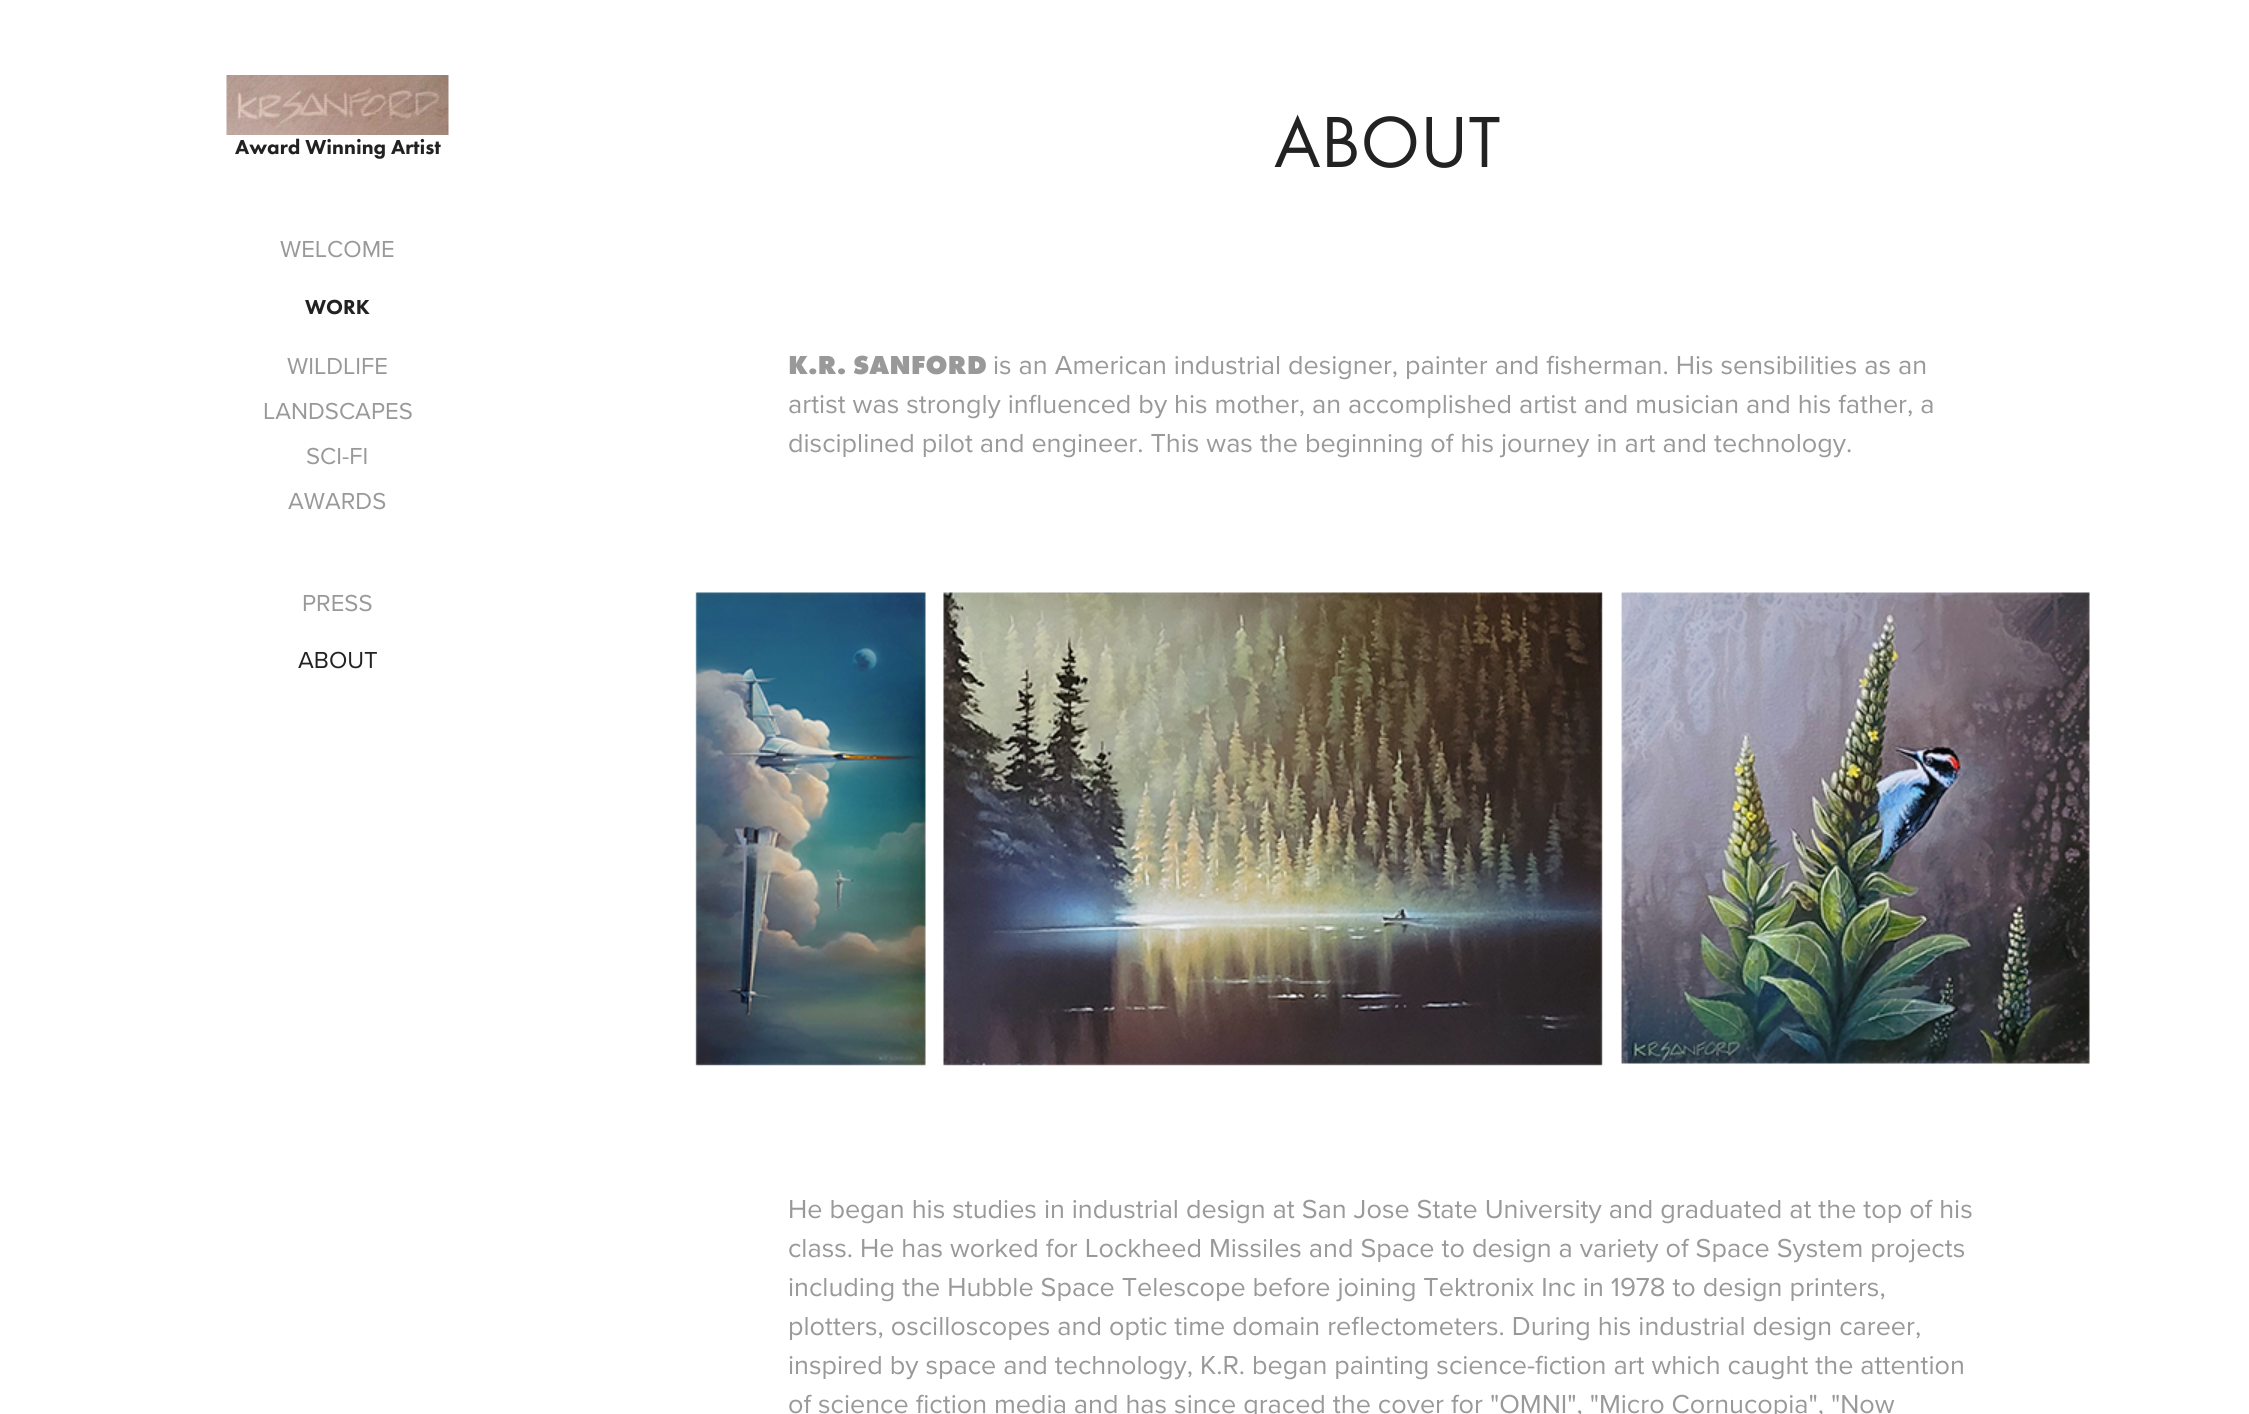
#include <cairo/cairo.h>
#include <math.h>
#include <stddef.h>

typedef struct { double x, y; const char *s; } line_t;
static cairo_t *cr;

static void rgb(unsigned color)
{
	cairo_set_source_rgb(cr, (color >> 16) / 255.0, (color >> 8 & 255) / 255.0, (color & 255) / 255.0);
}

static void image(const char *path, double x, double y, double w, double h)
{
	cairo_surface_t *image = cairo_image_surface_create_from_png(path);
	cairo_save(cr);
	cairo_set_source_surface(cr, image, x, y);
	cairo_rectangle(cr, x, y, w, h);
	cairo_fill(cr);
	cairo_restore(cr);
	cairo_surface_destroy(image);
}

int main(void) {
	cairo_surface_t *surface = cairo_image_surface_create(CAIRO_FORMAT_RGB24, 2249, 1414);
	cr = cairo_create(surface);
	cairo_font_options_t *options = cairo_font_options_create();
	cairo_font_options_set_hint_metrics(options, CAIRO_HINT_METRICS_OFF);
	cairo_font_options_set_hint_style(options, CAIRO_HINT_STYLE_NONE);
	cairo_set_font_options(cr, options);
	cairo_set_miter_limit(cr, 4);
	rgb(0xffffff);
	cairo_paint(cr);
	image("img/1.png", 226, 75, 223, 60);
	image("img/2.png", 695, 592, 1395, 474);
	cairo_select_font_face(cr, "Futura PT Black", CAIRO_FONT_SLANT_NORMAL, CAIRO_FONT_WEIGHT_NORMAL);
	cairo_set_font_size(cr, 21);
	rgb(0x222222);
	cairo_move_to(cr, 235, 154);
	cairo_show_text(cr, "Award Winning Artist");
	cairo_select_font_face(cr, "Proxima Nova", CAIRO_FONT_SLANT_NORMAL, CAIRO_FONT_WEIGHT_NORMAL);
	cairo_set_font_size(cr, 24);
	rgb(0x999999);
	cairo_move_to(cr, 280, 257);
	cairo_show_text(cr, "WELCOME");
	cairo_select_font_face(cr, "Futura PT Black", CAIRO_FONT_SLANT_NORMAL, CAIRO_FONT_WEIGHT_NORMAL);
	cairo_set_font_size(cr, 21);
	rgb(0x222222);
	cairo_move_to(cr, 305, 314);
	cairo_show_text(cr, "WORK");
	cairo_select_font_face(cr, "Proxima Nova", CAIRO_FONT_SLANT_NORMAL, CAIRO_FONT_WEIGHT_NORMAL);
	cairo_set_font_size(cr, 24);
	rgb(0x999999);
	{
		static const line_t items[] = {
			{287, 374, "WILDLIFE"},
			{263, 419, "LANDSCAPES"},
			{306, 464, "SCI-FI"},
			{288, 509, "AWARDS"},
			{302, 611, "PRESS"},
		};
		for (size_t i = 0; i < sizeof items / sizeof *items; i++) {
			cairo_move_to(cr, items[i].x, items[i].y);
			cairo_show_text(cr, items[i].s);
		}
	}
	rgb(0x222222);
	cairo_move_to(cr, 298, 668);
	cairo_show_text(cr, "ABOUT");
	cairo_select_font_face(cr, "Futura PT", CAIRO_FONT_SLANT_NORMAL, CAIRO_FONT_WEIGHT_NORMAL);
	cairo_set_font_size(cr, 75);
	cairo_move_to(cr, 1274, 167);
	cairo_show_text(cr, "ABOUT");
	cairo_select_font_face(cr, "Futura PT ExtraBold", CAIRO_FONT_SLANT_NORMAL, CAIRO_FONT_WEIGHT_NORMAL);
	cairo_set_font_size(cr, 27);
	rgb(0x999999);
	cairo_move_to(cr, 788, 374);
	cairo_show_text(cr, "K.R. SANFORD");
	cairo_select_font_face(cr, "Proxima Nova", CAIRO_FONT_SLANT_NORMAL, CAIRO_FONT_WEIGHT_NORMAL);
	{
		static const line_t items[] = {
			{993, 374, "is an American industrial designer, painter and fisherman. His sensibilities as an"},
			{788, 413, "artist was strongly influenced by his mother, an accomplished artist and musician and his father, a"},
			{788, 452, "disciplined pilot and engineer. This was the beginning of his journey in art and technology."},
			{788, 1218, "He began his studies in industrial design at San Jose State University and graduated at the top of his"},
			{788, 1257, "class. He has worked for Lockheed Missiles and Space to design a variety of Space System projects"},
			{788, 1296, "including the Hubble Space Telescope before joining Tektronix Inc in 1978 to design printers,"},
			{788, 1335, "plotters, oscilloscopes and optic time domain reflectometers. During his industrial design career,"},
			{788, 1374, "inspired by space and technology, K.R. began painting science-fiction art which caught the attention"},
			{788, 1413, "of science fiction media and has since graced the cover for \"OMNI\", \"Micro Cornucopia\", \"Now"},
		};
		for (size_t i = 0; i < sizeof items / sizeof *items; i++) {
			cairo_move_to(cr, items[i].x, items[i].y);
			cairo_show_text(cr, items[i].s);
		}
	}
	cairo_surface_write_to_png(surface, "page.png");
	cairo_font_options_destroy(options);
	cairo_destroy(cr);
	cairo_surface_destroy(surface);
	return 0;
}
